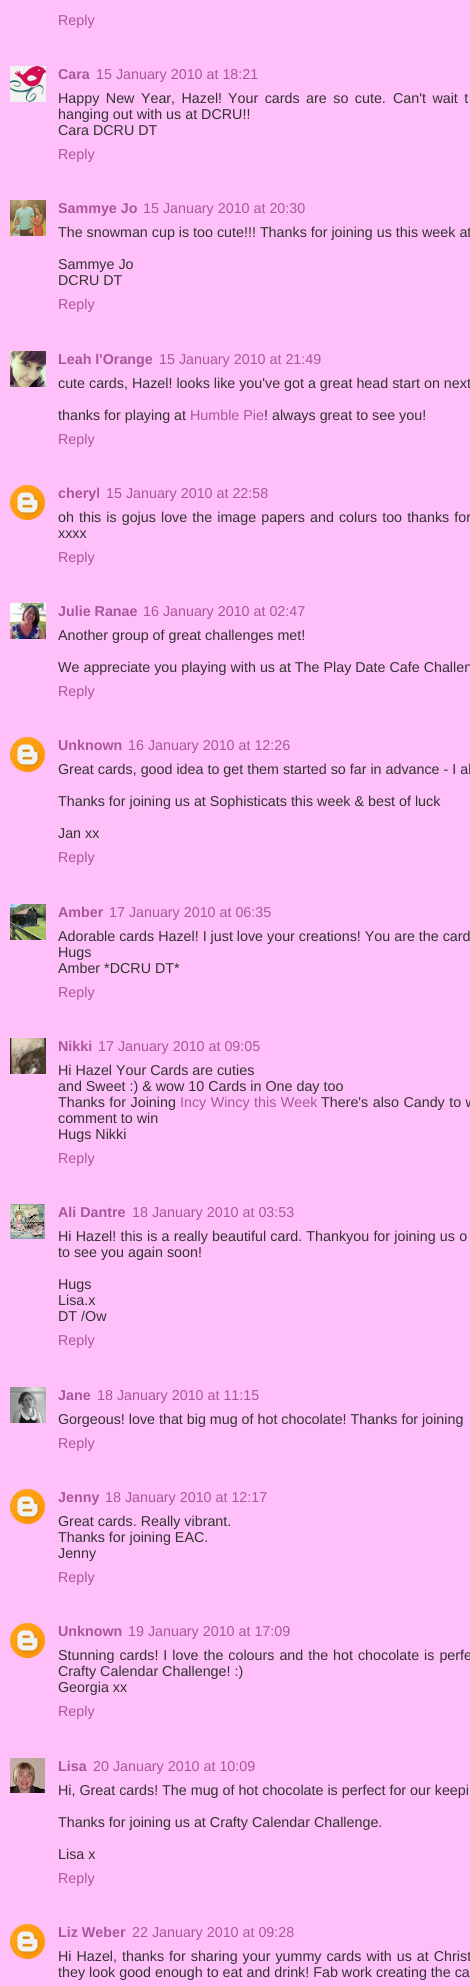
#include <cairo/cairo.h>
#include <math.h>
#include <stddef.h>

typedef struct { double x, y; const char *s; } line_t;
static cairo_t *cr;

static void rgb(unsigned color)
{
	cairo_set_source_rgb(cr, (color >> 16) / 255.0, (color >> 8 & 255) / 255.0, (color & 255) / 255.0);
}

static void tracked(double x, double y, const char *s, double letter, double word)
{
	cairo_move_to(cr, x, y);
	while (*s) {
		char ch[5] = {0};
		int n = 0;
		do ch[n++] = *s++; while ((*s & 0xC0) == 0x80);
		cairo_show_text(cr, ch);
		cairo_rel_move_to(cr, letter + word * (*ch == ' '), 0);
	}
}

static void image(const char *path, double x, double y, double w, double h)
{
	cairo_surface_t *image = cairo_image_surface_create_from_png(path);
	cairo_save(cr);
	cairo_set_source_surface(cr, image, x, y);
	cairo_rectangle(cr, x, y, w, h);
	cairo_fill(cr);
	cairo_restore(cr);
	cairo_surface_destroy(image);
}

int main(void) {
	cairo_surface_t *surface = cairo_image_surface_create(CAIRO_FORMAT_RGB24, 470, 1986);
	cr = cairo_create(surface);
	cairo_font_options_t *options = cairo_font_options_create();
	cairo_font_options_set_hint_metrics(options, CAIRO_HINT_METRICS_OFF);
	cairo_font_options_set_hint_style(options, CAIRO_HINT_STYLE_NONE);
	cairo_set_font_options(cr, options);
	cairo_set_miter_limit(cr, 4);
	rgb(0xffbff8);
	cairo_paint(cr);
	image("img/1.png", 10, 66, 36, 36);
	image("img/2.png", 10, 200, 36, 36);
	image("img/3.png", 10, 351, 36, 36);
	image("img/4.png", 10, 485, 35, 35);
	image("img/5.png", 10, 603, 36, 36);
	image("img/4.png", 10, 737, 35, 35);
	image("img/6.png", 10, 904, 36, 36);
	image("img/7.png", 10, 1038, 36, 36);
	image("img/8.png", 10, 1204, 35, 35);
	image("img/9.png", 10, 1387, 36, 36);
	image("img/4.png", 10, 1489, 35, 35);
	image("img/4.png", 10, 1623, 35, 35);
	image("img/10.png", 10, 1758, 35, 35);
	image("img/4.png", 10, 1924, 35, 35);
	cairo_select_font_face(cr, "Liberation Sans", CAIRO_FONT_SLANT_NORMAL, CAIRO_FONT_WEIGHT_NORMAL);
	cairo_set_font_size(cr, 14.3);
	rgb(0xaa55a0);
	cairo_move_to(cr, 58, 25);
	cairo_show_text(cr, "Reply");
	cairo_select_font_face(cr, "Liberation Sans", CAIRO_FONT_SLANT_NORMAL, CAIRO_FONT_WEIGHT_BOLD);
	cairo_move_to(cr, 58, 79);
	cairo_show_text(cr, "Cara");
	cairo_select_font_face(cr, "Liberation Sans", CAIRO_FONT_SLANT_NORMAL, CAIRO_FONT_WEIGHT_NORMAL);
	cairo_move_to(cr, 96, 79);
	cairo_show_text(cr, "15 January 2010 at 18:21");
	rgb(0x333333);
	{
		static const line_t items[] = {
			{58, 103, "Happy New Year, Hazel!"},
			{228, 103, "Your cards are so cute."},
			{393, 103, "Can't wait t"},
		};
		for (size_t i = 0; i < sizeof items / sizeof *items; i++) {
			tracked(items[i].x, items[i].y, items[i].s, 0, 2.5);
		}
	}
	cairo_move_to(cr, 58, 119);
	cairo_show_text(cr, "hanging out with us at DCRU!!");
	cairo_move_to(cr, 58, 135);
	cairo_show_text(cr, "Cara DCRU DT");
	rgb(0xaa55a0);
	cairo_move_to(cr, 58, 159);
	cairo_show_text(cr, "Reply");
	cairo_select_font_face(cr, "Liberation Sans", CAIRO_FONT_SLANT_NORMAL, CAIRO_FONT_WEIGHT_BOLD);
	cairo_move_to(cr, 58, 213);
	cairo_show_text(cr, "Sammye Jo");
	cairo_select_font_face(cr, "Liberation Sans", CAIRO_FONT_SLANT_NORMAL, CAIRO_FONT_WEIGHT_NORMAL);
	cairo_move_to(cr, 143, 213);
	cairo_show_text(cr, "15 January 2010 at 20:30");
	rgb(0x333333);
	{
		static const line_t items[] = {
			{58, 237, "The snowman cup is too cute!!! Thanks for joining us this week at"},
			{58, 269, "Sammye Jo"},
			{58, 285, "DCRU DT"},
		};
		for (size_t i = 0; i < sizeof items / sizeof *items; i++) {
			cairo_move_to(cr, items[i].x, items[i].y);
			cairo_show_text(cr, items[i].s);
		}
	}
	rgb(0xaa55a0);
	cairo_move_to(cr, 58, 309);
	cairo_show_text(cr, "Reply");
	cairo_select_font_face(cr, "Liberation Sans", CAIRO_FONT_SLANT_NORMAL, CAIRO_FONT_WEIGHT_BOLD);
	cairo_move_to(cr, 58, 364);
	cairo_show_text(cr, "Leah l'Orange");
	cairo_select_font_face(cr, "Liberation Sans", CAIRO_FONT_SLANT_NORMAL, CAIRO_FONT_WEIGHT_NORMAL);
	cairo_move_to(cr, 159, 364);
	cairo_show_text(cr, "15 January 2010 at 21:49");
	rgb(0x333333);
	cairo_move_to(cr, 58, 388);
	cairo_show_text(cr, "cute cards, Hazel! looks like you've got a great head start on next");
	cairo_move_to(cr, 58, 420);
	cairo_show_text(cr, "thanks for playing at");
	rgb(0xaa55a0);
	cairo_move_to(cr, 190, 420);
	cairo_show_text(cr, "Humble Pie");
	rgb(0x333333);
	cairo_move_to(cr, 264, 420);
	cairo_show_text(cr, "! always great to see you!");
	rgb(0xaa55a0);
	cairo_move_to(cr, 58, 444);
	cairo_show_text(cr, "Reply");
	cairo_select_font_face(cr, "Liberation Sans", CAIRO_FONT_SLANT_NORMAL, CAIRO_FONT_WEIGHT_BOLD);
	cairo_move_to(cr, 58, 498);
	cairo_show_text(cr, "cheryl");
	cairo_select_font_face(cr, "Liberation Sans", CAIRO_FONT_SLANT_NORMAL, CAIRO_FONT_WEIGHT_NORMAL);
	cairo_move_to(cr, 106, 498);
	cairo_show_text(cr, "15 January 2010 at 22:58");
	rgb(0x333333);
	tracked(58, 522, "oh this is gojus love the image papers and colurs too thanks for", 0, 1.1);
	cairo_move_to(cr, 58, 538);
	cairo_show_text(cr, "xxxx");
	rgb(0xaa55a0);
	cairo_move_to(cr, 58, 562);
	cairo_show_text(cr, "Reply");
	cairo_select_font_face(cr, "Liberation Sans", CAIRO_FONT_SLANT_NORMAL, CAIRO_FONT_WEIGHT_BOLD);
	cairo_move_to(cr, 58, 616);
	cairo_show_text(cr, "Julie Ranae");
	cairo_select_font_face(cr, "Liberation Sans", CAIRO_FONT_SLANT_NORMAL, CAIRO_FONT_WEIGHT_NORMAL);
	cairo_move_to(cr, 143, 616);
	cairo_show_text(cr, "16 January 2010 at 02:47");
	rgb(0x333333);
	cairo_move_to(cr, 58, 640);
	cairo_show_text(cr, "Another group of great challenges met!");
	cairo_move_to(cr, 58, 672);
	cairo_show_text(cr, "We appreciate you playing with us at The Play Date Cafe Challen");
	rgb(0xaa55a0);
	cairo_move_to(cr, 58, 696);
	cairo_show_text(cr, "Reply");
	cairo_select_font_face(cr, "Liberation Sans", CAIRO_FONT_SLANT_NORMAL, CAIRO_FONT_WEIGHT_BOLD);
	cairo_move_to(cr, 58, 750);
	cairo_show_text(cr, "Unknown");
	cairo_select_font_face(cr, "Liberation Sans", CAIRO_FONT_SLANT_NORMAL, CAIRO_FONT_WEIGHT_NORMAL);
	cairo_move_to(cr, 128, 750);
	cairo_show_text(cr, "16 January 2010 at 12:26");
	rgb(0x333333);
	{
		static const line_t items[] = {
			{58, 774, "Great cards, good idea to get them started so far in advance - I al"},
			{58, 806, "Thanks for joining us at Sophisticats this week & best of luck"},
			{58, 838, "Jan xx"},
		};
		for (size_t i = 0; i < sizeof items / sizeof *items; i++) {
			cairo_move_to(cr, items[i].x, items[i].y);
			cairo_show_text(cr, items[i].s);
		}
	}
	rgb(0xaa55a0);
	cairo_move_to(cr, 58, 862);
	cairo_show_text(cr, "Reply");
	cairo_select_font_face(cr, "Liberation Sans", CAIRO_FONT_SLANT_NORMAL, CAIRO_FONT_WEIGHT_BOLD);
	cairo_move_to(cr, 58, 917);
	cairo_show_text(cr, "Amber");
	cairo_select_font_face(cr, "Liberation Sans", CAIRO_FONT_SLANT_NORMAL, CAIRO_FONT_WEIGHT_NORMAL);
	cairo_move_to(cr, 109, 917);
	cairo_show_text(cr, "17 January 2010 at 06:35");
	rgb(0x333333);
	{
		static const line_t items[] = {
			{58, 941, "Adorable cards Hazel! I just love your creations! You are the card"},
			{58, 957, "Hugs"},
			{58, 973, "Amber *DCRU DT*"},
		};
		for (size_t i = 0; i < sizeof items / sizeof *items; i++) {
			cairo_move_to(cr, items[i].x, items[i].y);
			cairo_show_text(cr, items[i].s);
		}
	}
	rgb(0xaa55a0);
	cairo_move_to(cr, 58, 997);
	cairo_show_text(cr, "Reply");
	cairo_select_font_face(cr, "Liberation Sans", CAIRO_FONT_SLANT_NORMAL, CAIRO_FONT_WEIGHT_BOLD);
	cairo_move_to(cr, 58, 1051);
	cairo_show_text(cr, "Nikki");
	cairo_select_font_face(cr, "Liberation Sans", CAIRO_FONT_SLANT_NORMAL, CAIRO_FONT_WEIGHT_NORMAL);
	cairo_move_to(cr, 98, 1051);
	cairo_show_text(cr, "17 January 2010 at 09:05");
	rgb(0x333333);
	cairo_move_to(cr, 58, 1075);
	cairo_show_text(cr, "Hi Hazel Your Cards are cuties");
	cairo_move_to(cr, 58, 1091);
	cairo_show_text(cr, "and Sweet :) & wow 10 Cards in One day too");
	tracked(58, 1107, "Thanks for Joining", 0, 0.5);
	rgb(0xaa55a0);
	tracked(180, 1107, "Incy Wincy this Week", 0, 0.5);
	rgb(0x333333);
	tracked(321, 1107, "There's also Candy to w", 0, 0.5);
	cairo_move_to(cr, 58, 1123);
	cairo_show_text(cr, "comment to win");
	cairo_move_to(cr, 58, 1139);
	cairo_show_text(cr, "Hugs Nikki");
	rgb(0xaa55a0);
	cairo_move_to(cr, 58, 1163);
	cairo_show_text(cr, "Reply");
	cairo_select_font_face(cr, "Liberation Sans", CAIRO_FONT_SLANT_NORMAL, CAIRO_FONT_WEIGHT_BOLD);
	cairo_move_to(cr, 58, 1217);
	cairo_show_text(cr, "Ali Dantre");
	cairo_select_font_face(cr, "Liberation Sans", CAIRO_FONT_SLANT_NORMAL, CAIRO_FONT_WEIGHT_NORMAL);
	cairo_move_to(cr, 132, 1217);
	cairo_show_text(cr, "18 January 2010 at 03:53");
	rgb(0x333333);
	tracked(58, 1241, "Hi Hazel! this is a really beautiful card. Thankyou for joining us o", 0, 0.25);
	{
		static const line_t items[] = {
			{58, 1257, "to see you again soon!"},
			{58, 1289, "Hugs"},
			{58, 1305, "Lisa.x"},
			{58, 1321, "DT /Ow"},
		};
		for (size_t i = 0; i < sizeof items / sizeof *items; i++) {
			cairo_move_to(cr, items[i].x, items[i].y);
			cairo_show_text(cr, items[i].s);
		}
	}
	rgb(0xaa55a0);
	cairo_move_to(cr, 58, 1345);
	cairo_show_text(cr, "Reply");
	cairo_select_font_face(cr, "Liberation Sans", CAIRO_FONT_SLANT_NORMAL, CAIRO_FONT_WEIGHT_BOLD);
	cairo_move_to(cr, 58, 1400);
	cairo_show_text(cr, "Jane");
	cairo_select_font_face(cr, "Liberation Sans", CAIRO_FONT_SLANT_NORMAL, CAIRO_FONT_WEIGHT_NORMAL);
	cairo_move_to(cr, 97, 1400);
	cairo_show_text(cr, "18 January 2010 at 11:15");
	rgb(0x333333);
	cairo_move_to(cr, 58, 1424);
	cairo_show_text(cr, "Gorgeous! love that big mug of hot chocolate! Thanks for joining");
	rgb(0xaa55a0);
	cairo_move_to(cr, 58, 1448);
	cairo_show_text(cr, "Reply");
	cairo_select_font_face(cr, "Liberation Sans", CAIRO_FONT_SLANT_NORMAL, CAIRO_FONT_WEIGHT_BOLD);
	cairo_move_to(cr, 58, 1502);
	cairo_show_text(cr, "Jenny");
	cairo_select_font_face(cr, "Liberation Sans", CAIRO_FONT_SLANT_NORMAL, CAIRO_FONT_WEIGHT_NORMAL);
	cairo_move_to(cr, 105, 1502);
	cairo_show_text(cr, "18 January 2010 at 12:17");
	rgb(0x333333);
	{
		static const line_t items[] = {
			{58, 1526, "Great cards. Really vibrant."},
			{58, 1542, "Thanks for joining EAC."},
			{58, 1558, "Jenny"},
		};
		for (size_t i = 0; i < sizeof items / sizeof *items; i++) {
			cairo_move_to(cr, items[i].x, items[i].y);
			cairo_show_text(cr, items[i].s);
		}
	}
	rgb(0xaa55a0);
	cairo_move_to(cr, 58, 1582);
	cairo_show_text(cr, "Reply");
	cairo_select_font_face(cr, "Liberation Sans", CAIRO_FONT_SLANT_NORMAL, CAIRO_FONT_WEIGHT_BOLD);
	cairo_move_to(cr, 58, 1636);
	cairo_show_text(cr, "Unknown");
	cairo_select_font_face(cr, "Liberation Sans", CAIRO_FONT_SLANT_NORMAL, CAIRO_FONT_WEIGHT_NORMAL);
	cairo_move_to(cr, 128, 1636);
	cairo_show_text(cr, "19 January 2010 at 17:09");
	rgb(0x333333);
	tracked(58, 1660, "Stunning cards! I love the colours and the hot chocolate is perfe", 0, 1);
	cairo_move_to(cr, 58, 1676);
	cairo_show_text(cr, "Crafty Calendar Challenge! :)");
	cairo_move_to(cr, 58, 1692);
	cairo_show_text(cr, "Georgia xx");
	rgb(0xaa55a0);
	cairo_move_to(cr, 58, 1716);
	cairo_show_text(cr, "Reply");
	cairo_select_font_face(cr, "Liberation Sans", CAIRO_FONT_SLANT_NORMAL, CAIRO_FONT_WEIGHT_BOLD);
	cairo_move_to(cr, 58, 1771);
	cairo_show_text(cr, "Lisa");
	cairo_select_font_face(cr, "Liberation Sans", CAIRO_FONT_SLANT_NORMAL, CAIRO_FONT_WEIGHT_NORMAL);
	cairo_move_to(cr, 93, 1771);
	cairo_show_text(cr, "20 January 2010 at 10:09");
	rgb(0x333333);
	{
		static const line_t items[] = {
			{58, 1795, "Hi, Great cards! The mug of hot chocolate is perfect for our keepi"},
			{58, 1827, "Thanks for joining us at Crafty Calendar Challenge."},
			{58, 1859, "Lisa x"},
		};
		for (size_t i = 0; i < sizeof items / sizeof *items; i++) {
			cairo_move_to(cr, items[i].x, items[i].y);
			cairo_show_text(cr, items[i].s);
		}
	}
	rgb(0xaa55a0);
	cairo_move_to(cr, 58, 1883);
	cairo_show_text(cr, "Reply");
	cairo_select_font_face(cr, "Liberation Sans", CAIRO_FONT_SLANT_NORMAL, CAIRO_FONT_WEIGHT_BOLD);
	cairo_move_to(cr, 58, 1937);
	cairo_show_text(cr, "Liz Weber");
	cairo_select_font_face(cr, "Liberation Sans", CAIRO_FONT_SLANT_NORMAL, CAIRO_FONT_WEIGHT_NORMAL);
	cairo_move_to(cr, 132, 1937);
	cairo_show_text(cr, "22 January 2010 at 09:28");
	rgb(0x333333);
	tracked(58, 1961, "Hi Hazel, thanks for sharing your yummy cards with us at Christ", 0, 1);
	cairo_move_to(cr, 58, 1977);
	cairo_show_text(cr, "they look good enough to eat and drink! Fab work creating the ca");
	cairo_surface_write_to_png(surface, "page.png");
	cairo_font_options_destroy(options);
	cairo_destroy(cr);
	cairo_surface_destroy(surface);
	return 0;
}
